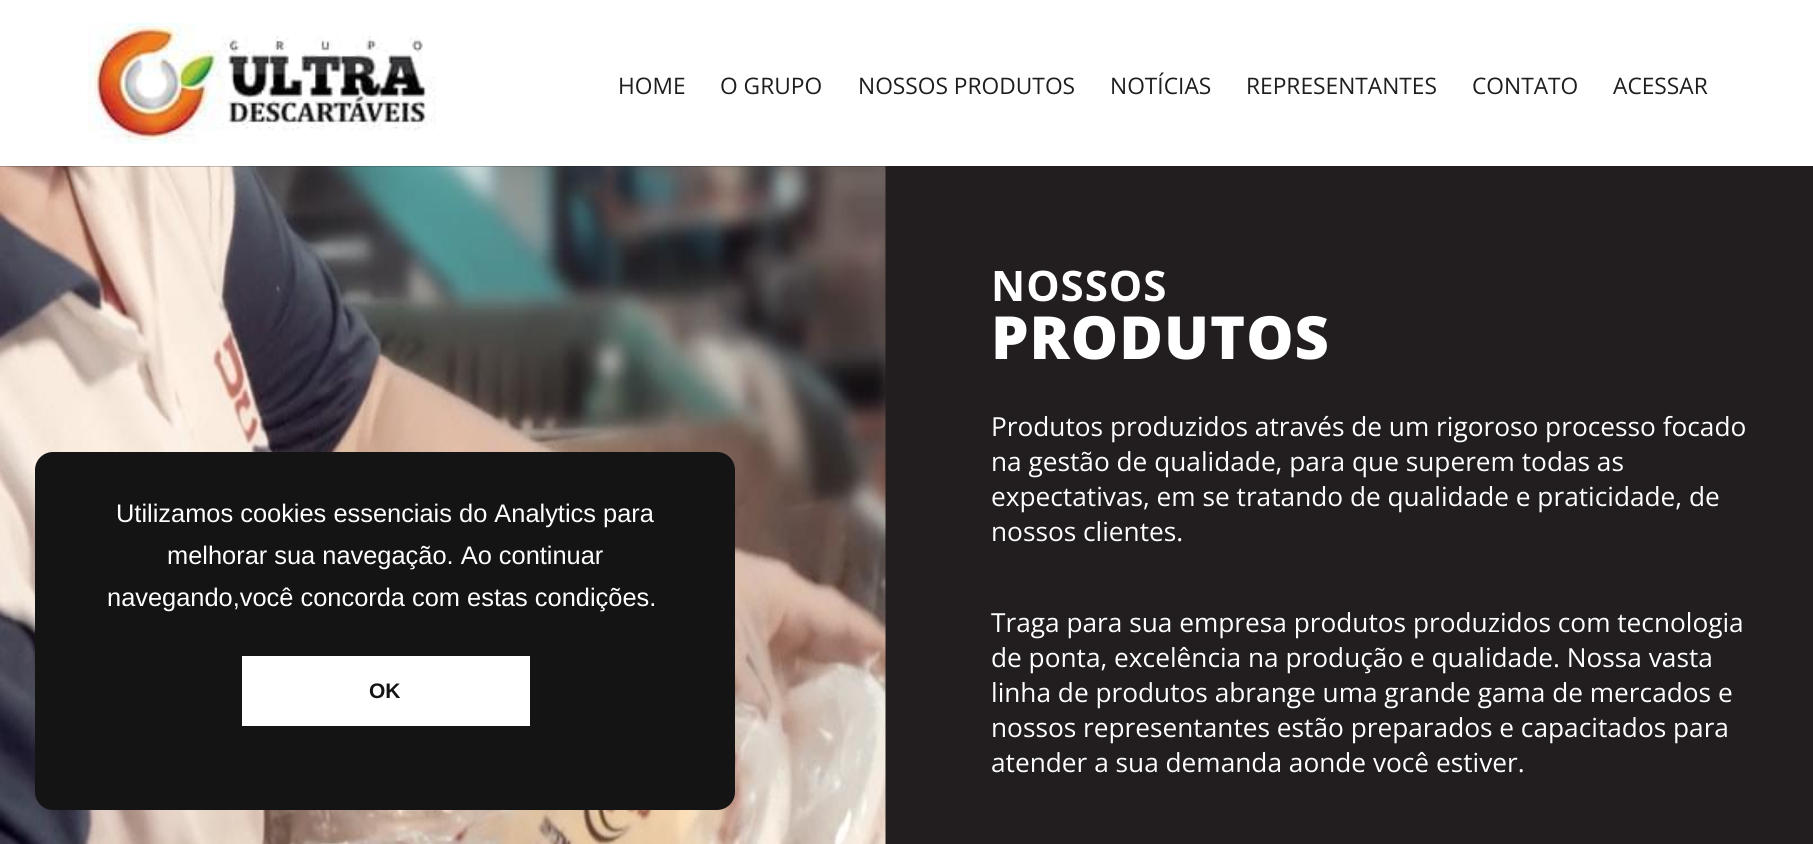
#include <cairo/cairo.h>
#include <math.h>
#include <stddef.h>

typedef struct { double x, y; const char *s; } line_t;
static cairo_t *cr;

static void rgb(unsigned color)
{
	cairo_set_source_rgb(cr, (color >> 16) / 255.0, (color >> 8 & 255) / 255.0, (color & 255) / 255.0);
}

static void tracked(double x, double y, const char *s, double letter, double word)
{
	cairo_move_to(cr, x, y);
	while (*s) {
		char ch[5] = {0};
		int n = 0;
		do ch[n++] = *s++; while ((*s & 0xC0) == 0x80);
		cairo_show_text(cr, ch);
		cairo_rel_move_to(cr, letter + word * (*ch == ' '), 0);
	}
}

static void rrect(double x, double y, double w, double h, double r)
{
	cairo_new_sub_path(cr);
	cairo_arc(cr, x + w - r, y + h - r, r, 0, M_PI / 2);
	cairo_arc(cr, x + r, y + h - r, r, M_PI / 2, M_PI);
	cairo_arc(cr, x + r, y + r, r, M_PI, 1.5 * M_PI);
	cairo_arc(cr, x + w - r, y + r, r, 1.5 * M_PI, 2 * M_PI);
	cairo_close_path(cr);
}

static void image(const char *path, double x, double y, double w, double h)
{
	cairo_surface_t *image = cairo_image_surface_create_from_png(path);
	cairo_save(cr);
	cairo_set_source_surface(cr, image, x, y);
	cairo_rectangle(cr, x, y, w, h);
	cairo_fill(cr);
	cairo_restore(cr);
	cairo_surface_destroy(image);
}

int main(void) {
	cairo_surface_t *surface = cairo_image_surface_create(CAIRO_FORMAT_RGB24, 1813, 844);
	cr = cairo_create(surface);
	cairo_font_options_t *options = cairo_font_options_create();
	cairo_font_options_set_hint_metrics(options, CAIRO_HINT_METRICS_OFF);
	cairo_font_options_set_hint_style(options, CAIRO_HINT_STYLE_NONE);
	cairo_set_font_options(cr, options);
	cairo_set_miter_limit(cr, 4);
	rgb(0xffffff);
	cairo_paint(cr);
	image("img/1.png", 87, 22, 349, 122);
	rgb(0x221e1f);
	cairo_rectangle(cr, 0, 166, 1813, 678);
	cairo_fill(cr);
	image("img/2.png", 0, 166, 886, 678);
	rgb(0x141414);
	rrect(35, 452, 700, 358, 18);
	cairo_fill(cr);
	rgb(0xffffff);
	cairo_rectangle(cr, 242, 656, 288, 70);
	cairo_fill(cr);
	cairo_select_font_face(cr, "Open Sans", CAIRO_FONT_SLANT_NORMAL, CAIRO_FONT_WEIGHT_NORMAL);
	cairo_set_font_size(cr, 22.75);
	rgb(0x1e1e21);
	{
		static const line_t items[] = {
			{618, 94, "HOME"},
			{720, 94, "O GRUPO"},
			{858, 94, "NOSSOS PRODUTOS"},
			{1110, 94, "NOTÍCIAS"},
			{1246, 94, "REPRESENTANTES"},
			{1472, 94, "CONTATO"},
			{1613, 94, "ACESSAR"},
		};
		for (size_t i = 0; i < sizeof items / sizeof *items; i++) {
			cairo_move_to(cr, items[i].x, items[i].y);
			cairo_show_text(cr, items[i].s);
		}
	}
	cairo_select_font_face(cr, "Liberation Sans", CAIRO_FONT_SLANT_NORMAL, CAIRO_FONT_WEIGHT_NORMAL);
	cairo_set_font_size(cr, 25.4);
	rgb(0xffffff);
	{
		static const line_t items[] = {
			{116, 522, "Utilizamos cookies essenciais do Analytics para"},
			{167, 564, "melhorar sua navegação. Ao continuar"},
			{107, 606, "navegando,você concorda com estas condições."},
		};
		for (size_t i = 0; i < sizeof items / sizeof *items; i++) {
			cairo_move_to(cr, items[i].x, items[i].y);
			cairo_show_text(cr, items[i].s);
		}
	}
	cairo_select_font_face(cr, "Liberation Sans", CAIRO_FONT_SLANT_NORMAL, CAIRO_FONT_WEIGHT_BOLD);
	cairo_set_font_size(cr, 21);
	rgb(0x141414);
	cairo_move_to(cr, 369, 698);
	cairo_show_text(cr, "OK");
	cairo_select_font_face(cr, "Open Sans", CAIRO_FONT_SLANT_NORMAL, CAIRO_FONT_WEIGHT_BOLD);
	cairo_set_font_size(cr, 42);
	rgb(0xffffff);
	tracked(991, 301, "NOSSOS", 1, 0);
	cairo_select_font_face(cr, "Open Sans ExtraBold", CAIRO_FONT_SLANT_NORMAL, CAIRO_FONT_WEIGHT_NORMAL);
	cairo_set_font_size(cr, 59.5);
	tracked(991, 359, "PRODUTOS", 1, 0);
	cairo_select_font_face(cr, "Open Sans", CAIRO_FONT_SLANT_NORMAL, CAIRO_FONT_WEIGHT_NORMAL);
	cairo_set_font_size(cr, 26.25);
	{
		static const line_t items[] = {
			{991, 436, "Produtos produzidos através de um rigoroso processo focado"},
			{991, 471, "na gestão de qualidade, para que superem todas as"},
			{991, 506, "expectativas, em se tratando de qualidade e praticidade, de"},
			{991, 541, "nossos clientes."},
			{991, 632, "Traga para sua empresa produtos produzidos com tecnologia"},
			{991, 667, "de ponta, excelência na produção e qualidade. Nossa vasta"},
			{991, 702, "linha de produtos abrange uma grande gama de mercados e"},
			{991, 737, "nossos representantes estão preparados e capacitados para"},
			{991, 772, "atender a sua demanda aonde você estiver."},
		};
		for (size_t i = 0; i < sizeof items / sizeof *items; i++) {
			cairo_move_to(cr, items[i].x, items[i].y);
			cairo_show_text(cr, items[i].s);
		}
	}
	cairo_surface_write_to_png(surface, "page.png");
	cairo_font_options_destroy(options);
	cairo_destroy(cr);
	cairo_surface_destroy(surface);
	return 0;
}
